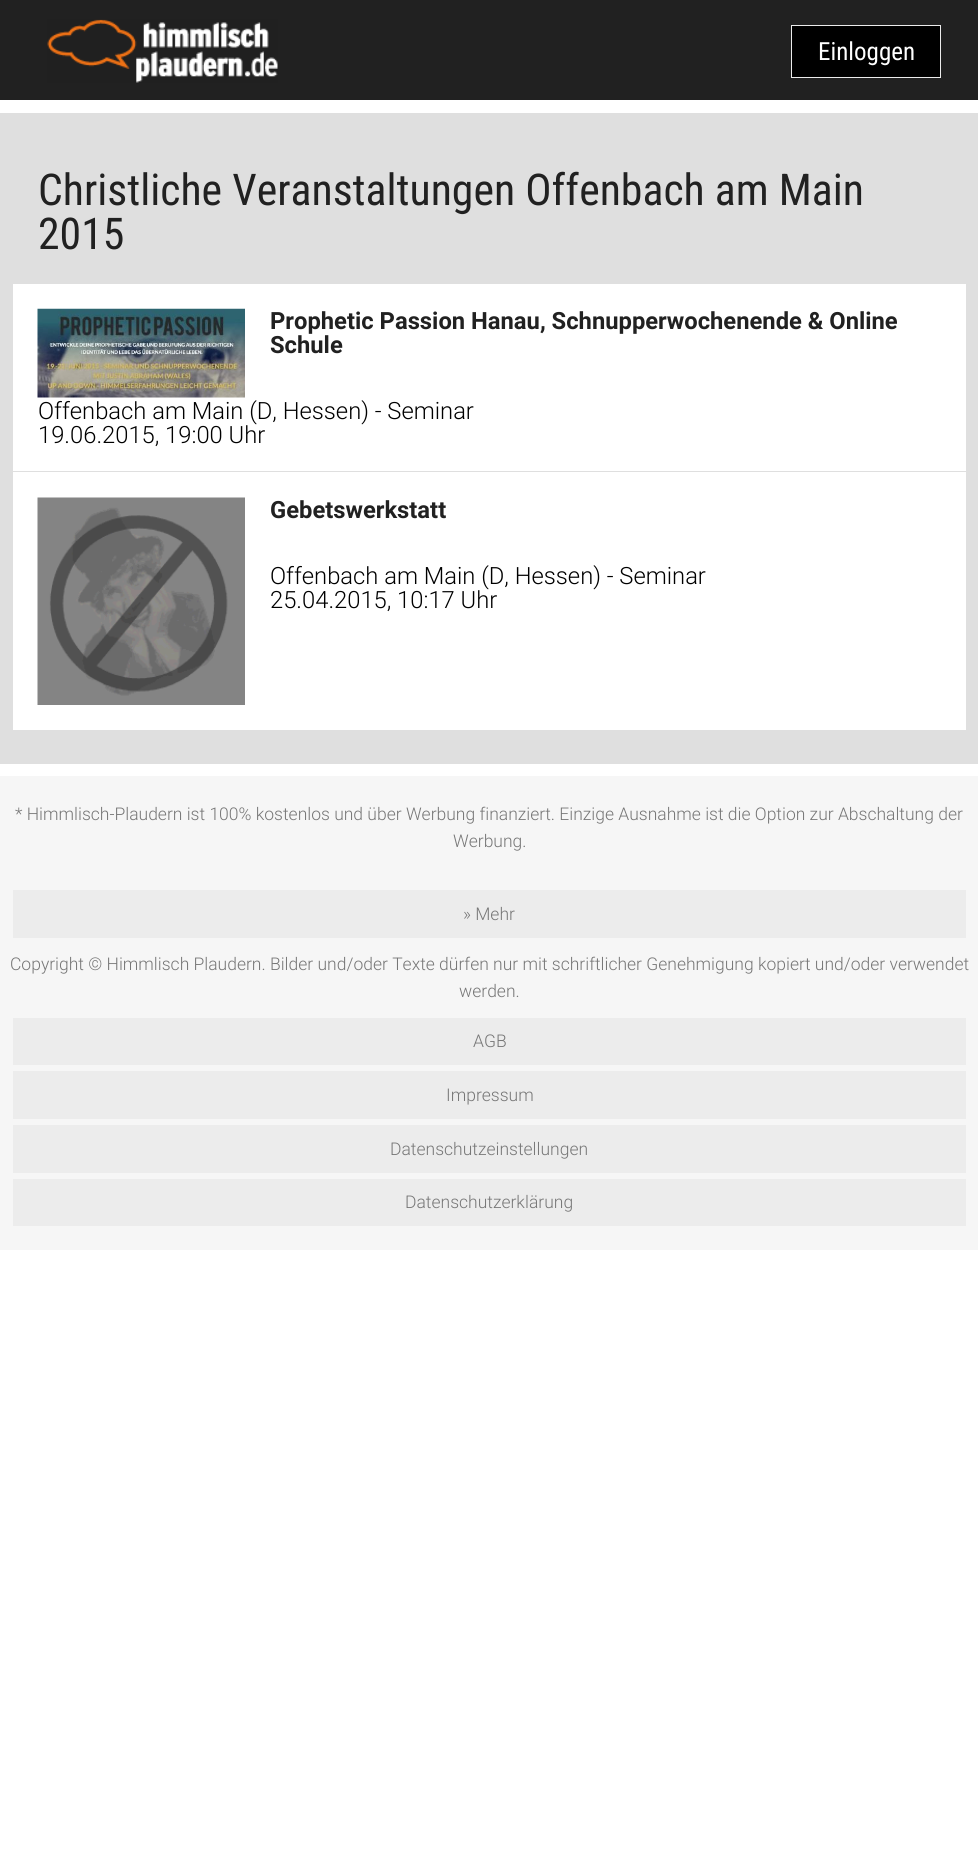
#include <cairo/cairo.h>
#include <math.h>
#include <stddef.h>

typedef struct { double x, y; const char *s; } line_t;
typedef struct { double x, y, w, h; unsigned color; } box_t;
static cairo_t *cr;

static void rgb(unsigned color)
{
	cairo_set_source_rgb(cr, (color >> 16) / 255.0, (color >> 8 & 255) / 255.0, (color & 255) / 255.0);
}

static void image(const char *path, double x, double y, double w, double h)
{
	cairo_surface_t *image = cairo_image_surface_create_from_png(path);
	cairo_save(cr);
	cairo_set_source_surface(cr, image, x, y);
	cairo_rectangle(cr, x, y, w, h);
	cairo_fill(cr);
	cairo_restore(cr);
	cairo_surface_destroy(image);
}

int main(void) {
	cairo_surface_t *surface = cairo_image_surface_create(CAIRO_FORMAT_RGB24, 978, 1850);
	cr = cairo_create(surface);
	cairo_font_options_t *options = cairo_font_options_create();
	cairo_font_options_set_hint_metrics(options, CAIRO_HINT_METRICS_OFF);
	cairo_font_options_set_hint_style(options, CAIRO_HINT_STYLE_NONE);
	cairo_set_font_options(cr, options);
	cairo_set_miter_limit(cr, 4);
	rgb(0xffffff);
	cairo_paint(cr);
	rgb(0x212121);
	cairo_rectangle(cr, 0, 0, 978, 100);
	cairo_fill(cr);
	image("img/1.png", 47, 19, 231, 64);
	rgb(0x000000);
	cairo_rectangle(cr, 791.5, 25.5, 149, 52);
	cairo_fill_preserve(cr);
	rgb(0xececec);
	cairo_set_line_width(cr, 1);
	cairo_stroke(cr);
	{
		static const box_t items[] = {
			{0, 113, 978, 651, 0xdfdfdf},
			{13, 284, 953, 446, 0xffffff},
			{13, 471, 953, 1, 0xdfdfdf},
		};
		for (size_t i = 0; i < sizeof items / sizeof *items; i++) {
			rgb(items[i].color);
			cairo_rectangle(cr, items[i].x, items[i].y, items[i].w, items[i].h);
			cairo_fill(cr);
		}
	}
	image("img/2.png", 37, 308, 208, 90);
	image("img/3.png", 37, 497, 208, 208);
	{
		static const box_t items[] = {
			{0, 776, 978, 474, 0xf6f6f6},
			{13, 890, 953, 48, 0xececec},
			{13, 1018, 953, 47, 0xececec},
			{13, 1071, 953, 48, 0xececec},
			{13, 1125, 953, 48, 0xececec},
			{13, 1179, 953, 47, 0xececec},
		};
		for (size_t i = 0; i < sizeof items / sizeof *items; i++) {
			rgb(items[i].color);
			cairo_rectangle(cr, items[i].x, items[i].y, items[i].w, items[i].h);
			cairo_fill(cr);
		}
	}
	cairo_select_font_face(cr, "Roboto Condensed", CAIRO_FONT_SLANT_NORMAL, CAIRO_FONT_WEIGHT_NORMAL);
	cairo_set_font_size(cr, 25);
	rgb(0xffffff);
	cairo_move_to(cr, 818, 60);
	cairo_show_text(cr, "Einloggen");
	cairo_set_font_size(cr, 43.75);
	rgb(0x212121);
	cairo_move_to(cr, 38, 205);
	cairo_show_text(cr, "Christliche Veranstaltungen Offenbach am Main");
	cairo_move_to(cr, 38, 249);
	cairo_show_text(cr, "2015");
	cairo_select_font_face(cr, "Roboto", CAIRO_FONT_SLANT_NORMAL, CAIRO_FONT_WEIGHT_BOLD);
	cairo_set_font_size(cr, 23.75);
	cairo_move_to(cr, 270, 329);
	cairo_show_text(cr, "Prophetic Passion Hanau, Schnupperwochenende & Online");
	cairo_move_to(cr, 270, 353);
	cairo_show_text(cr, "Schule");
	cairo_select_font_face(cr, "Roboto Light", CAIRO_FONT_SLANT_NORMAL, CAIRO_FONT_WEIGHT_NORMAL);
	rgb(0x000000);
	cairo_move_to(cr, 38, 419);
	cairo_show_text(cr, "Offenbach am Main (D, Hessen) - Seminar");
	cairo_move_to(cr, 38, 443);
	cairo_show_text(cr, "19.06.2015, 19:00 Uhr");
	cairo_select_font_face(cr, "Roboto", CAIRO_FONT_SLANT_NORMAL, CAIRO_FONT_WEIGHT_BOLD);
	rgb(0x212121);
	cairo_move_to(cr, 270, 518);
	cairo_show_text(cr, "Gebetswerkstatt");
	cairo_select_font_face(cr, "Roboto Light", CAIRO_FONT_SLANT_NORMAL, CAIRO_FONT_WEIGHT_NORMAL);
	rgb(0x000000);
	cairo_move_to(cr, 270, 584);
	cairo_show_text(cr, "Offenbach am Main (D, Hessen) - Seminar");
	cairo_move_to(cr, 270, 608);
	cairo_show_text(cr, "25.04.2015, 10:17 Uhr");
	cairo_set_font_size(cr, 17.5);
	rgb(0x777777);
	{
		static const line_t items[] = {
			{15, 820, "* Himmlisch-Plaudern ist 100% kostenlos und über Werbung finanziert. Einzige Ausnahme ist die Option zur Abschaltung der"},
			{453, 847, "Werbung."},
			{463, 920, "» Mehr"},
			{10, 970, "Copyright © Himmlisch Plaudern. Bilder und/oder Texte dürfen nur mit schriftlicher Genehmigung kopiert und/oder verwendet"},
			{459, 997, "werden."},
			{473, 1047, "AGB"},
			{446, 1101, "Impressum"},
			{390, 1155, "Datenschutzeinstellungen"},
			{405, 1208, "Datenschutzerklärung"},
		};
		for (size_t i = 0; i < sizeof items / sizeof *items; i++) {
			cairo_move_to(cr, items[i].x, items[i].y);
			cairo_show_text(cr, items[i].s);
		}
	}
	cairo_surface_write_to_png(surface, "page.png");
	cairo_font_options_destroy(options);
	cairo_destroy(cr);
	cairo_surface_destroy(surface);
	return 0;
}
